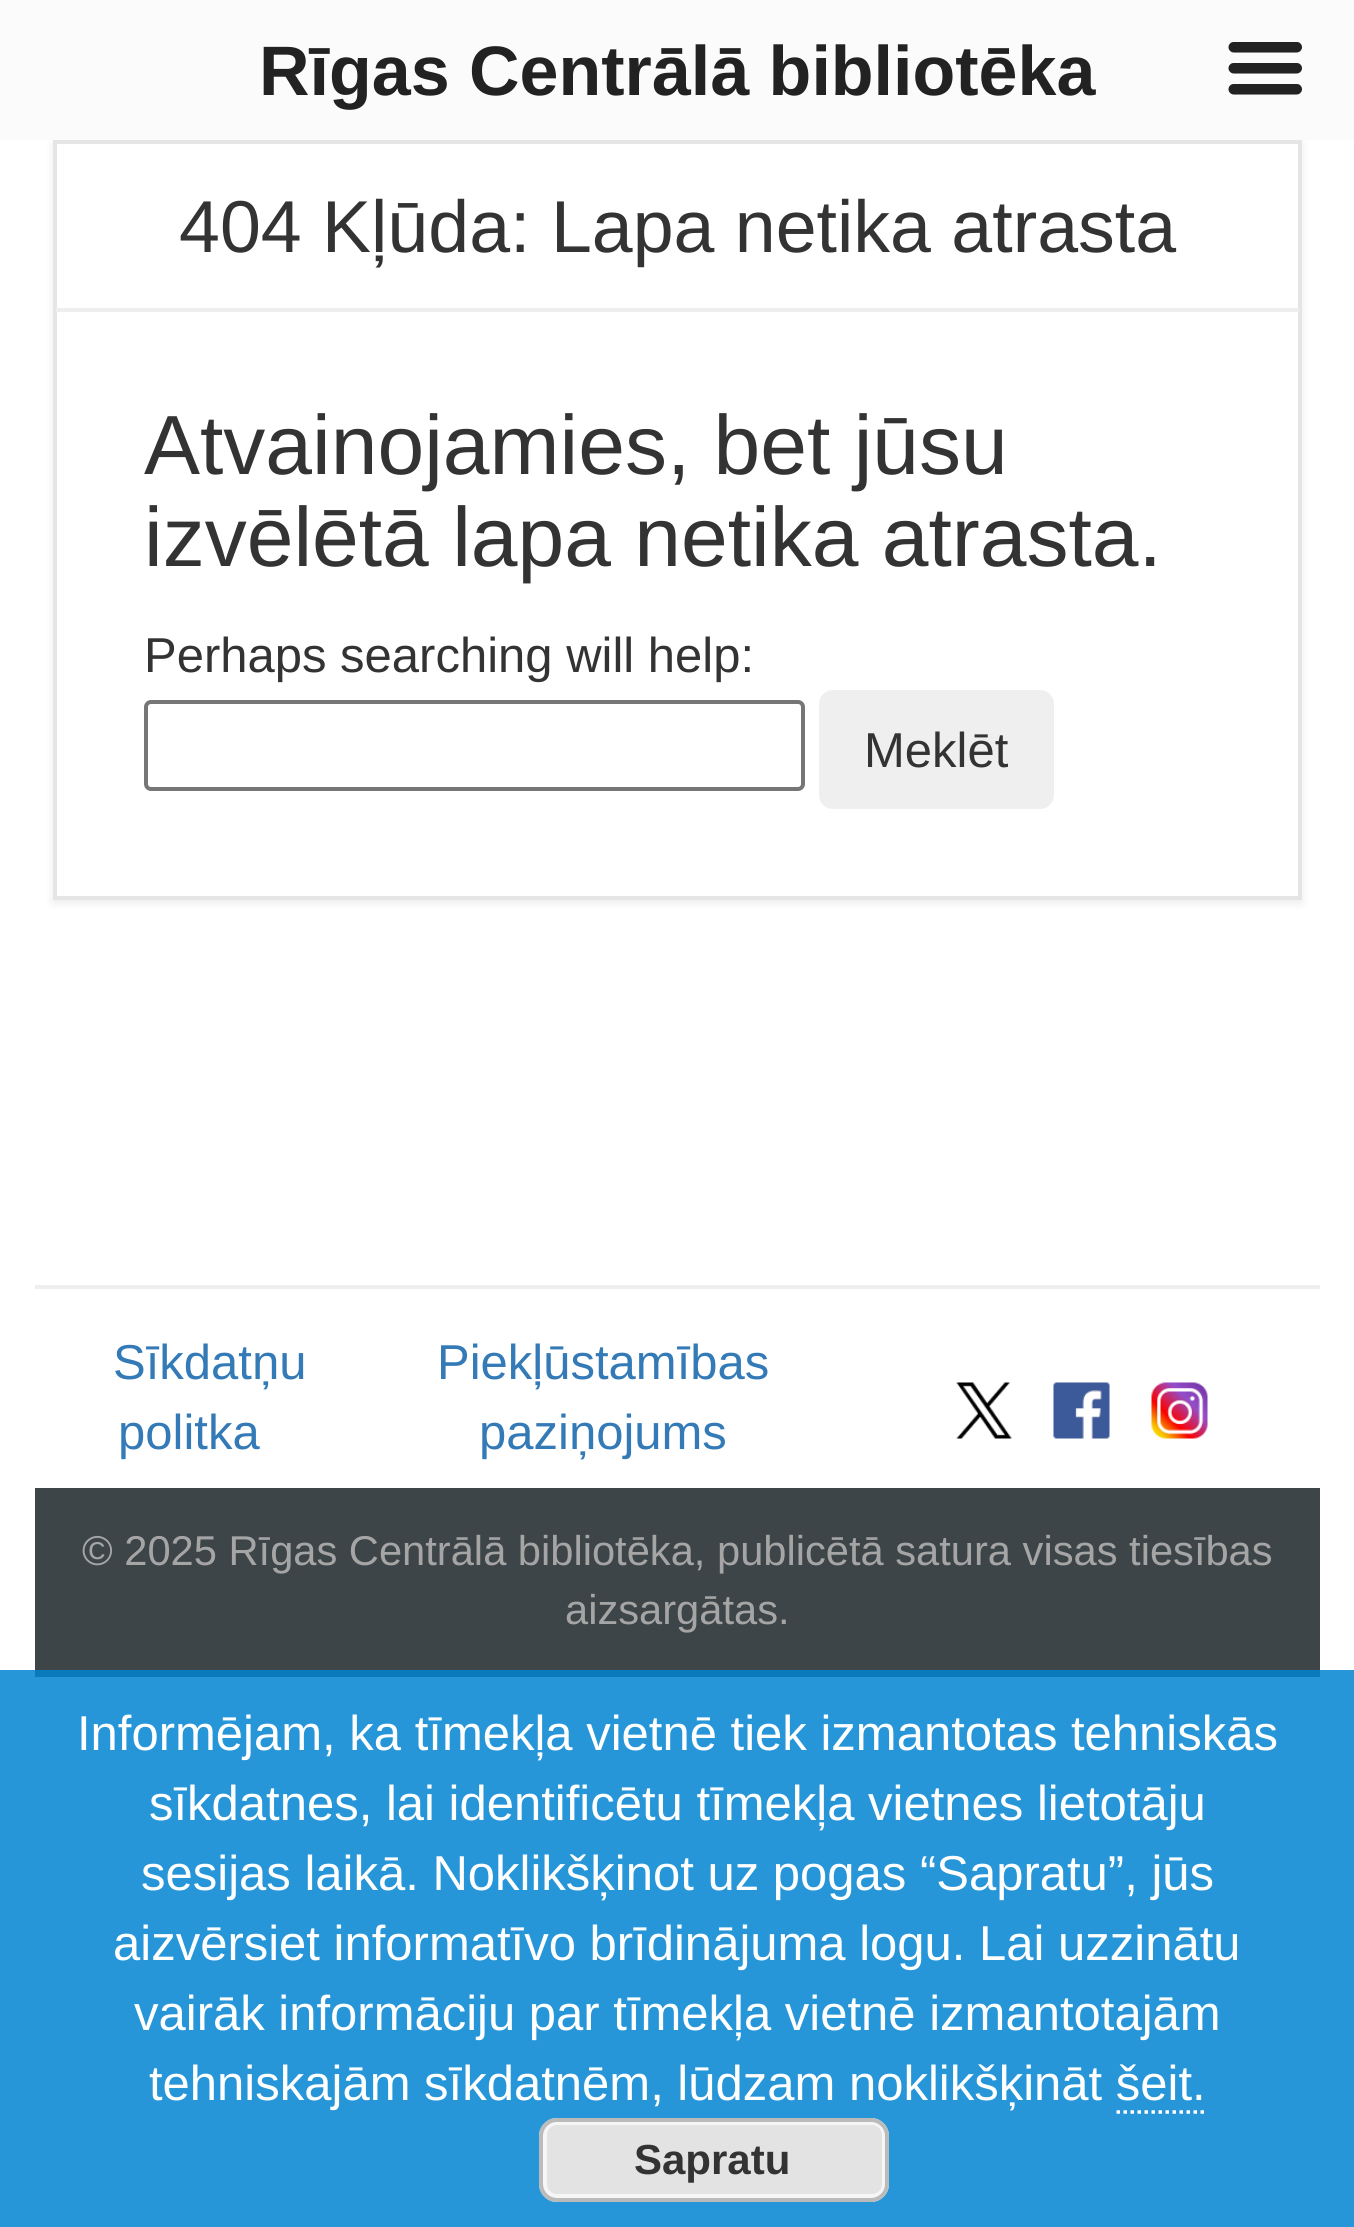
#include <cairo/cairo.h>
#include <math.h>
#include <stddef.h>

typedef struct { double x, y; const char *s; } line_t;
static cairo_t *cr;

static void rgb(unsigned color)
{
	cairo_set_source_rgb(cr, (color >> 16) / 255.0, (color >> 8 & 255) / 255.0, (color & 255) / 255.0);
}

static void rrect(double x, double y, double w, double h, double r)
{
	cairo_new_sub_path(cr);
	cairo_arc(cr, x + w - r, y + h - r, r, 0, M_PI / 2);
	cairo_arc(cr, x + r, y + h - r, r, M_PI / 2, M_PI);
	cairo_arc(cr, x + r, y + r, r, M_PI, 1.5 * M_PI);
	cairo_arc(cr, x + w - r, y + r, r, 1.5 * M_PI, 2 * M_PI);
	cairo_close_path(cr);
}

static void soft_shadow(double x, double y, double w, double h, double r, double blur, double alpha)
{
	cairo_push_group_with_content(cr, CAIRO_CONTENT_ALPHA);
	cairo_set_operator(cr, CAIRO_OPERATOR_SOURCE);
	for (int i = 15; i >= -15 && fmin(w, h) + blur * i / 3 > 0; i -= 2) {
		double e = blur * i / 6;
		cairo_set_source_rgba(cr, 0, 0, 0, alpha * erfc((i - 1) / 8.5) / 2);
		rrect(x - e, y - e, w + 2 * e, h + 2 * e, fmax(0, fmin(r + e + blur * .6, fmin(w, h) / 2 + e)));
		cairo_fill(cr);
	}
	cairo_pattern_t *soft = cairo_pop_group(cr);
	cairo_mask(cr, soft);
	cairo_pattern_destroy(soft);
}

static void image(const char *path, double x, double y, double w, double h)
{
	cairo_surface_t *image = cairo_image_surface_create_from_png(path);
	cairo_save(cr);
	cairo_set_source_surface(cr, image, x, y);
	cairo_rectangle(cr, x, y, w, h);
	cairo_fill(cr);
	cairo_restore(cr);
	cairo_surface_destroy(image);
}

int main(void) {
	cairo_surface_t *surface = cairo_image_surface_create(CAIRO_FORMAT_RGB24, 1354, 2227);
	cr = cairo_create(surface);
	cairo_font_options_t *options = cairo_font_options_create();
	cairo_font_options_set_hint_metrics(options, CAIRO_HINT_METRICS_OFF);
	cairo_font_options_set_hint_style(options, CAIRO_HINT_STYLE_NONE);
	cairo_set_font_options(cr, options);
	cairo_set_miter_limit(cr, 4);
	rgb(0xffffff);
	cairo_paint(cr);
	rgb(0x2696d8);
	cairo_rectangle(cr, 0, 1670, 1354, 557);
	cairo_fill(cr);
	rgb(0x000000);
	soft_shadow(53, 144, 1249, 759, 0, 5, 0.08);
	rgb(0xfbfbfb);
	cairo_rectangle(cr, 0, 0, 1354, 140);
	cairo_fill(cr);
	image("img/1.png", 1228, 42, 74, 53);
	rgb(0xffffff);
	cairo_rectangle(cr, 55, 142, 1245, 756);
	cairo_fill_preserve(cr);
	rgb(0xe5e5e5);
	cairo_set_line_width(cr, 4);
	cairo_stroke(cr);
	rgb(0xeeeeee);
	cairo_rectangle(cr, 56, 308, 1243, 4);
	cairo_fill(cr);
	rrect(146, 702, 657, 87, 5);
	rgb(0x767676);
	cairo_stroke(cr);
	rgb(0xefefef);
	rrect(819, 690, 235, 119, 14);
	cairo_fill(cr);
	rgb(0xeeeeee);
	cairo_rectangle(cr, 35, 1285, 1285, 4);
	cairo_fill(cr);
	image("img/2.png", 956, 1382, 56, 57);
	image("img/3.png", 1053, 1382, 57, 57);
	image("img/4.png", 1151, 1382, 57, 57);
	rgb(0x3d4548);
	cairo_rectangle(cr, 35, 1488, 1285, 182);
	cairo_fill(cr);
	rgb(0x097bbc);
	cairo_rectangle(cr, 35, 1670, 1285, 7);
	cairo_fill(cr);
	cairo_new_path(cr);
	cairo_move_to(cr, 1116.5, 2112);
	cairo_line_to(cr, 1204, 2112);
	rgb(0xffffff);
	cairo_set_line_width(cr, 3.5);
	cairo_set_dash(cr, (double[]){3.5, 3.5}, 2, 0);
	cairo_stroke(cr);
	rgb(0xe3e3e3);
	rrect(539, 2118, 350, 84, 18);
	cairo_fill(cr);
	rrect(545, 2123, 339, 73, 12);
	rgb(0xf6f6f6);
	cairo_set_line_width(cr, 4);
	cairo_set_dash(cr, NULL, 0, 0);
	cairo_stroke(cr);
	rrect(541, 2120, 346, 80, 16);
	rgb(0xbbbbbb);
	cairo_stroke(cr);
	cairo_select_font_face(cr, "Liberation Sans", CAIRO_FONT_SLANT_NORMAL, CAIRO_FONT_WEIGHT_BOLD);
	cairo_set_font_size(cr, 70);
	rgb(0x222222);
	cairo_move_to(cr, 259, 95);
	cairo_show_text(cr, "Rīgas Centrālā bibliotēka");
	cairo_select_font_face(cr, "Liberation Sans", CAIRO_FONT_SLANT_NORMAL, CAIRO_FONT_WEIGHT_NORMAL);
	cairo_set_font_size(cr, 73.5);
	rgb(0x333333);
	cairo_move_to(cr, 179, 252);
	cairo_show_text(cr, "404 Kļūda: Lapa netika atrasta");
	cairo_set_font_size(cr, 84);
	cairo_move_to(cr, 144, 474);
	cairo_show_text(cr, "Atvainojamies, bet jūsu");
	cairo_move_to(cr, 144, 566);
	cairo_show_text(cr, "izvēlētā lapa netika atrasta.");
	cairo_set_font_size(cr, 49);
	cairo_move_to(cr, 144, 672);
	cairo_show_text(cr, "Perhaps searching will help:");
	cairo_move_to(cr, 864, 767);
	cairo_show_text(cr, "Meklēt");
	rgb(0x337ab7);
	{
		static const line_t items[] = {
			{113, 1379, "Sīkdatņu"},
			{118, 1449, "politka"},
			{437, 1379, "Piekļūstamības"},
			{479, 1449, "paziņojums"},
		};
		for (size_t i = 0; i < sizeof items / sizeof *items; i++) {
			cairo_move_to(cr, items[i].x, items[i].y);
			cairo_show_text(cr, items[i].s);
		}
	}
	cairo_set_font_size(cr, 41.65);
	rgb(0xa5a5a5);
	cairo_move_to(cr, 82, 1565);
	cairo_show_text(cr, "© 2025 Rīgas Centrālā bibliotēka, publicētā satura visas tiesības");
	cairo_move_to(cr, 565, 1624);
	cairo_show_text(cr, "aizsargātas.");
	cairo_set_font_size(cr, 49);
	rgb(0xffffff);
	{
		static const line_t items[] = {
			{77, 1750, "Informējam, ka tīmekļa vietnē tiek izmantotas tehniskās"},
			{149, 1820, "sīkdatnes, lai identificētu tīmekļa vietnes lietotāju"},
			{141, 1890, "sesijas laikā. Noklikšķinot uz pogas “Sapratu”, jūs"},
			{113, 1960, "aizvērsiet informatīvo brīdinājuma logu. Lai uzzinātu"},
			{134, 2030, "vairāk informāciju par tīmekļa vietnē izmantotajām"},
			{149, 2100, "tehniskajām sīkdatnēm, lūdzam noklikšķināt šeit."},
		};
		for (size_t i = 0; i < sizeof items / sizeof *items; i++) {
			cairo_move_to(cr, items[i].x, items[i].y);
			cairo_show_text(cr, items[i].s);
		}
	}
	cairo_select_font_face(cr, "Liberation Sans", CAIRO_FONT_SLANT_NORMAL, CAIRO_FONT_WEIGHT_BOLD);
	cairo_set_font_size(cr, 42);
	rgb(0x333333);
	cairo_move_to(cr, 634, 2174);
	cairo_show_text(cr, "Sapratu");
	cairo_surface_write_to_png(surface, "page.png");
	cairo_font_options_destroy(options);
	cairo_destroy(cr);
	cairo_surface_destroy(surface);
	return 0;
}
